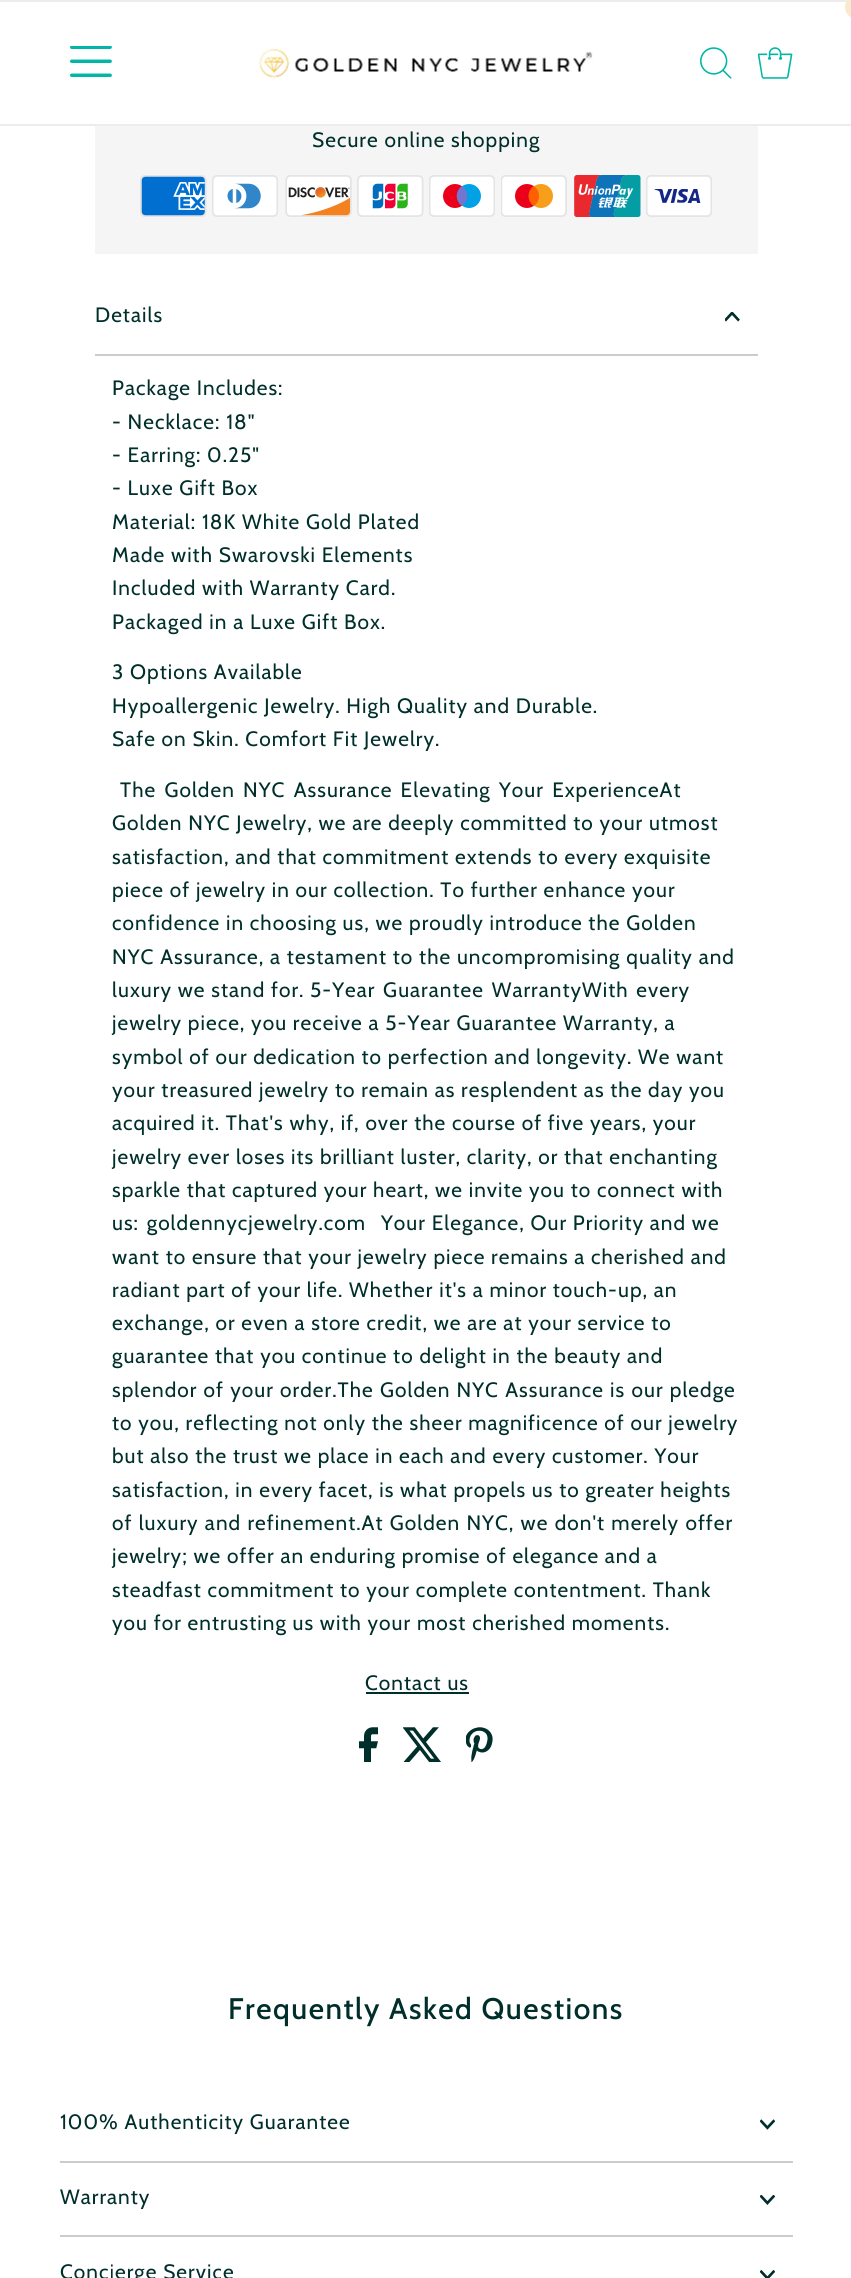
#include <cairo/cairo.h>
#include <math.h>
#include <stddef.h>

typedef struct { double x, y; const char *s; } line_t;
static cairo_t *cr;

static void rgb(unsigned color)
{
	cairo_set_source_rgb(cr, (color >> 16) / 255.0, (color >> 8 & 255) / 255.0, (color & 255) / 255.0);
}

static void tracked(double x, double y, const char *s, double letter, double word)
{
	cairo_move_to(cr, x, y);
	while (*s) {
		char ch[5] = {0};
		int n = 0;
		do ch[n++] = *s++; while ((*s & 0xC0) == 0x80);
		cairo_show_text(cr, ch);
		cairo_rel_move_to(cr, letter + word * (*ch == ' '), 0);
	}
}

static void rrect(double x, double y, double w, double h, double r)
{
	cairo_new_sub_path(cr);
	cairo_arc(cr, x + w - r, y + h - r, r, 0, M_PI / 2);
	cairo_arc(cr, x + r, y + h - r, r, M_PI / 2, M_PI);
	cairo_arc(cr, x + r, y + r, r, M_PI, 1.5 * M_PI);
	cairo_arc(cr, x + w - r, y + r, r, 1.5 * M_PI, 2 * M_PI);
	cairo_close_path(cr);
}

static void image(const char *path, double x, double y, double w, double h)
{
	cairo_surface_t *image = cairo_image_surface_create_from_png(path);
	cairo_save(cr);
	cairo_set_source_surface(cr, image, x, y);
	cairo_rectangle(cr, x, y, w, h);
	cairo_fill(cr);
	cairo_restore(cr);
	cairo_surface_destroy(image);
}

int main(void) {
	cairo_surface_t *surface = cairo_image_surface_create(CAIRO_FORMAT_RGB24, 851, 2278);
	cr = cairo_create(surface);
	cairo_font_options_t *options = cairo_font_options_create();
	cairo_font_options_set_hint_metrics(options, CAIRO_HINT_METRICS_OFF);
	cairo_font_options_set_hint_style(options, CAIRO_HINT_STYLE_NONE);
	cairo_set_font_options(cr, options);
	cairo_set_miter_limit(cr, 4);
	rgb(0xffffff);
	cairo_paint(cr);
	rgb(0xececec);
	cairo_rectangle(cr, 0, 0, 851, 2);
	cairo_fill(cr);
	cairo_rectangle(cr, 0, 124, 851, 2);
	cairo_fill(cr);
	image("img/1.png", 70, 46, 42, 31);
	image("img/2.png", 258, 48, 335, 30);
	image("img/3.png", 700, 47, 32, 32);
	rgb(0xf8eace);
	rrect(845, -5, 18, 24, 12);
	cairo_fill(cr);
	image("img/4.png", 758, 47, 35, 32);
	rgb(0xf5f5f5);
	cairo_rectangle(cr, 95, 126, 663, 128);
	cairo_fill(cr);
	image("img/5.png", 140, 175, 67, 42);
	image("img/6.png", 212, 175, 66, 42);
	image("img/7.png", 285, 175, 67, 42);
	image("img/8.png", 357, 175, 67, 42);
	image("img/9.png", 429, 175, 66, 42);
	image("img/10.png", 501, 175, 66, 42);
	image("img/11.png", 574, 175, 67, 42);
	image("img/12.png", 646, 175, 66, 42);
	rgb(0xcccccc);
	cairo_rectangle(cr, 95, 354, 663, 2);
	cairo_fill(cr);
	image("img/13.png", 725, 312, 15, 10);
	rgb(0x002f2b);
	cairo_rectangle(cr, 366, 1692, 103, 2);
	cairo_fill(cr);
	image("img/14.png", 359, 1727, 19, 35);
	image("img/15.png", 403, 1727, 38, 35);
	image("img/16.png", 466, 1727, 27, 35);
	rgb(0xcccccc);
	cairo_rectangle(cr, 60, 2161, 733, 2);
	cairo_fill(cr);
	image("img/17.png", 760, 2119, 15, 11);
	cairo_rectangle(cr, 60, 2235, 733, 2);
	cairo_fill(cr);
	image("img/18.png", 760, 2195, 15, 10);
	image("img/19.png", 760, 2270, 15, 8);
	cairo_select_font_face(cr, "Cabin", CAIRO_FONT_SLANT_NORMAL, CAIRO_FONT_WEIGHT_NORMAL);
	cairo_set_font_size(cr, 20.8);
	rgb(0x002f2b);
	{
		static const line_t items[] = {
			{312, 147, "Secure online shopping"},
			{95, 322, "Details"},
			{112, 395, "Package Includes:"},
			{112, 429, "- Necklace: 18\""},
			{112, 462, "- Earring: 0.25\""},
			{112, 495, "- Luxe Gift Box"},
			{112, 529, "Material: 18K White Gold Plated"},
			{112, 562, "Made with Swarovski Elements"},
			{112, 595, "Included with Warranty Card."},
			{112, 629, "Packaged in a Luxe Gift Box."},
			{112, 679, "3 Options Available"},
			{112, 713, "Hypoallergenic Jewelry. High Quality and Durable."},
			{112, 746, "Safe on Skin. Comfort Fit Jewelry."},
		};
		for (size_t i = 0; i < sizeof items / sizeof *items; i++) {
			tracked(items[i].x, items[i].y, items[i].s, 1.05, 0);
		}
	}
	tracked(120, 797, "The Golden NYC Assurance Elevating Your ExperienceAt", 1.05, 2.5);
	{
		static const line_t items[] = {
			{112, 830, "Golden NYC Jewelry, we are deeply committed to your utmost"},
			{112, 864, "satisfaction, and that commitment extends to every exquisite"},
			{112, 897, "piece of jewelry in our collection. To further enhance your"},
			{112, 930, "confidence in choosing us, we proudly introduce the Golden"},
			{112, 964, "NYC Assurance, a testament to the uncompromising quality and"},
			{112, 997, "luxury we stand for."},
		};
		for (size_t i = 0; i < sizeof items / sizeof *items; i++) {
			tracked(items[i].x, items[i].y, items[i].s, 1.05, 0);
		}
	}
	tracked(310, 997, "5-Year Guarantee WarrantyWith every", 1.05, 2);
	{
		static const line_t items[] = {
			{112, 1030, "jewelry piece, you receive a 5-Year Guarantee Warranty, a"},
			{112, 1064, "symbol of our dedication to perfection and longevity. We want"},
			{112, 1097, "your treasured jewelry to remain as resplendent as the day you"},
			{112, 1130, "acquired it. That's why, if, over the course of five years, your"},
			{112, 1164, "jewelry ever loses its brilliant luster, clarity, or that enchanting"},
			{112, 1197, "sparkle that captured your heart, we invite you to connect with"},
		};
		for (size_t i = 0; i < sizeof items / sizeof *items; i++) {
			tracked(items[i].x, items[i].y, items[i].s, 1.05, 0);
		}
	}
	tracked(112, 1230, "us: goldennycjewelry.com", 1.05, 2);
	{
		static const line_t items[] = {
			{381, 1230, "Your Elegance, Our Priority and we"},
			{112, 1264, "want to ensure that your jewelry piece remains a cherished and"},
			{112, 1297, "radiant part of your life. Whether it's a minor touch-up, an"},
			{112, 1330, "exchange, or even a store credit, we are at your service to"},
			{112, 1363, "guarantee that you continue to delight in the beauty and"},
		};
		for (size_t i = 0; i < sizeof items / sizeof *items; i++) {
			tracked(items[i].x, items[i].y, items[i].s, 1.05, 0);
		}
	}
	tracked(112, 1397, "splendor of your order.The Golden NYC Assurance is our pledge", 1.05, 0.5);
	{
		static const line_t items[] = {
			{112, 1430, "to you, reflecting not only the sheer magnificence of our jewelry"},
			{112, 1463, "but also the trust we place in each and every customer. Your"},
			{112, 1497, "satisfaction, in every facet, is what propels us to greater heights"},
		};
		for (size_t i = 0; i < sizeof items / sizeof *items; i++) {
			tracked(items[i].x, items[i].y, items[i].s, 1.05, 0);
		}
	}
	tracked(112, 1530, "of luxury and refinement.At Golden NYC, we don't merely offer", 1.05, 0.5);
	{
		static const line_t items[] = {
			{112, 1563, "jewelry; we offer an enduring promise of elegance and a"},
			{112, 1597, "steadfast commitment to your complete contentment. Thank"},
			{112, 1630, "you for entrusting us with your most cherished moments."},
			{365, 1690, "Contact us"},
		};
		for (size_t i = 0; i < sizeof items / sizeof *items; i++) {
			tracked(items[i].x, items[i].y, items[i].s, 1.05, 0);
		}
	}
	cairo_select_font_face(cr, "Cabin Medium", CAIRO_FONT_SLANT_NORMAL, CAIRO_FONT_WEIGHT_NORMAL);
	cairo_set_font_size(cr, 29.75);
	tracked(228, 2019, "Frequently Asked Questions", 1.5, 0);
	cairo_select_font_face(cr, "Cabin", CAIRO_FONT_SLANT_NORMAL, CAIRO_FONT_WEIGHT_NORMAL);
	cairo_set_font_size(cr, 20.8);
	{
		static const line_t items[] = {
			{60, 2129, "100% Authenticity Guarantee"},
			{60, 2204, "Warranty"},
			{60, 2279, "Concierge Service"},
		};
		for (size_t i = 0; i < sizeof items / sizeof *items; i++) {
			tracked(items[i].x, items[i].y, items[i].s, 1.05, 0);
		}
	}
	cairo_surface_write_to_png(surface, "page.png");
	cairo_font_options_destroy(options);
	cairo_destroy(cr);
	cairo_surface_destroy(surface);
	return 0;
}
